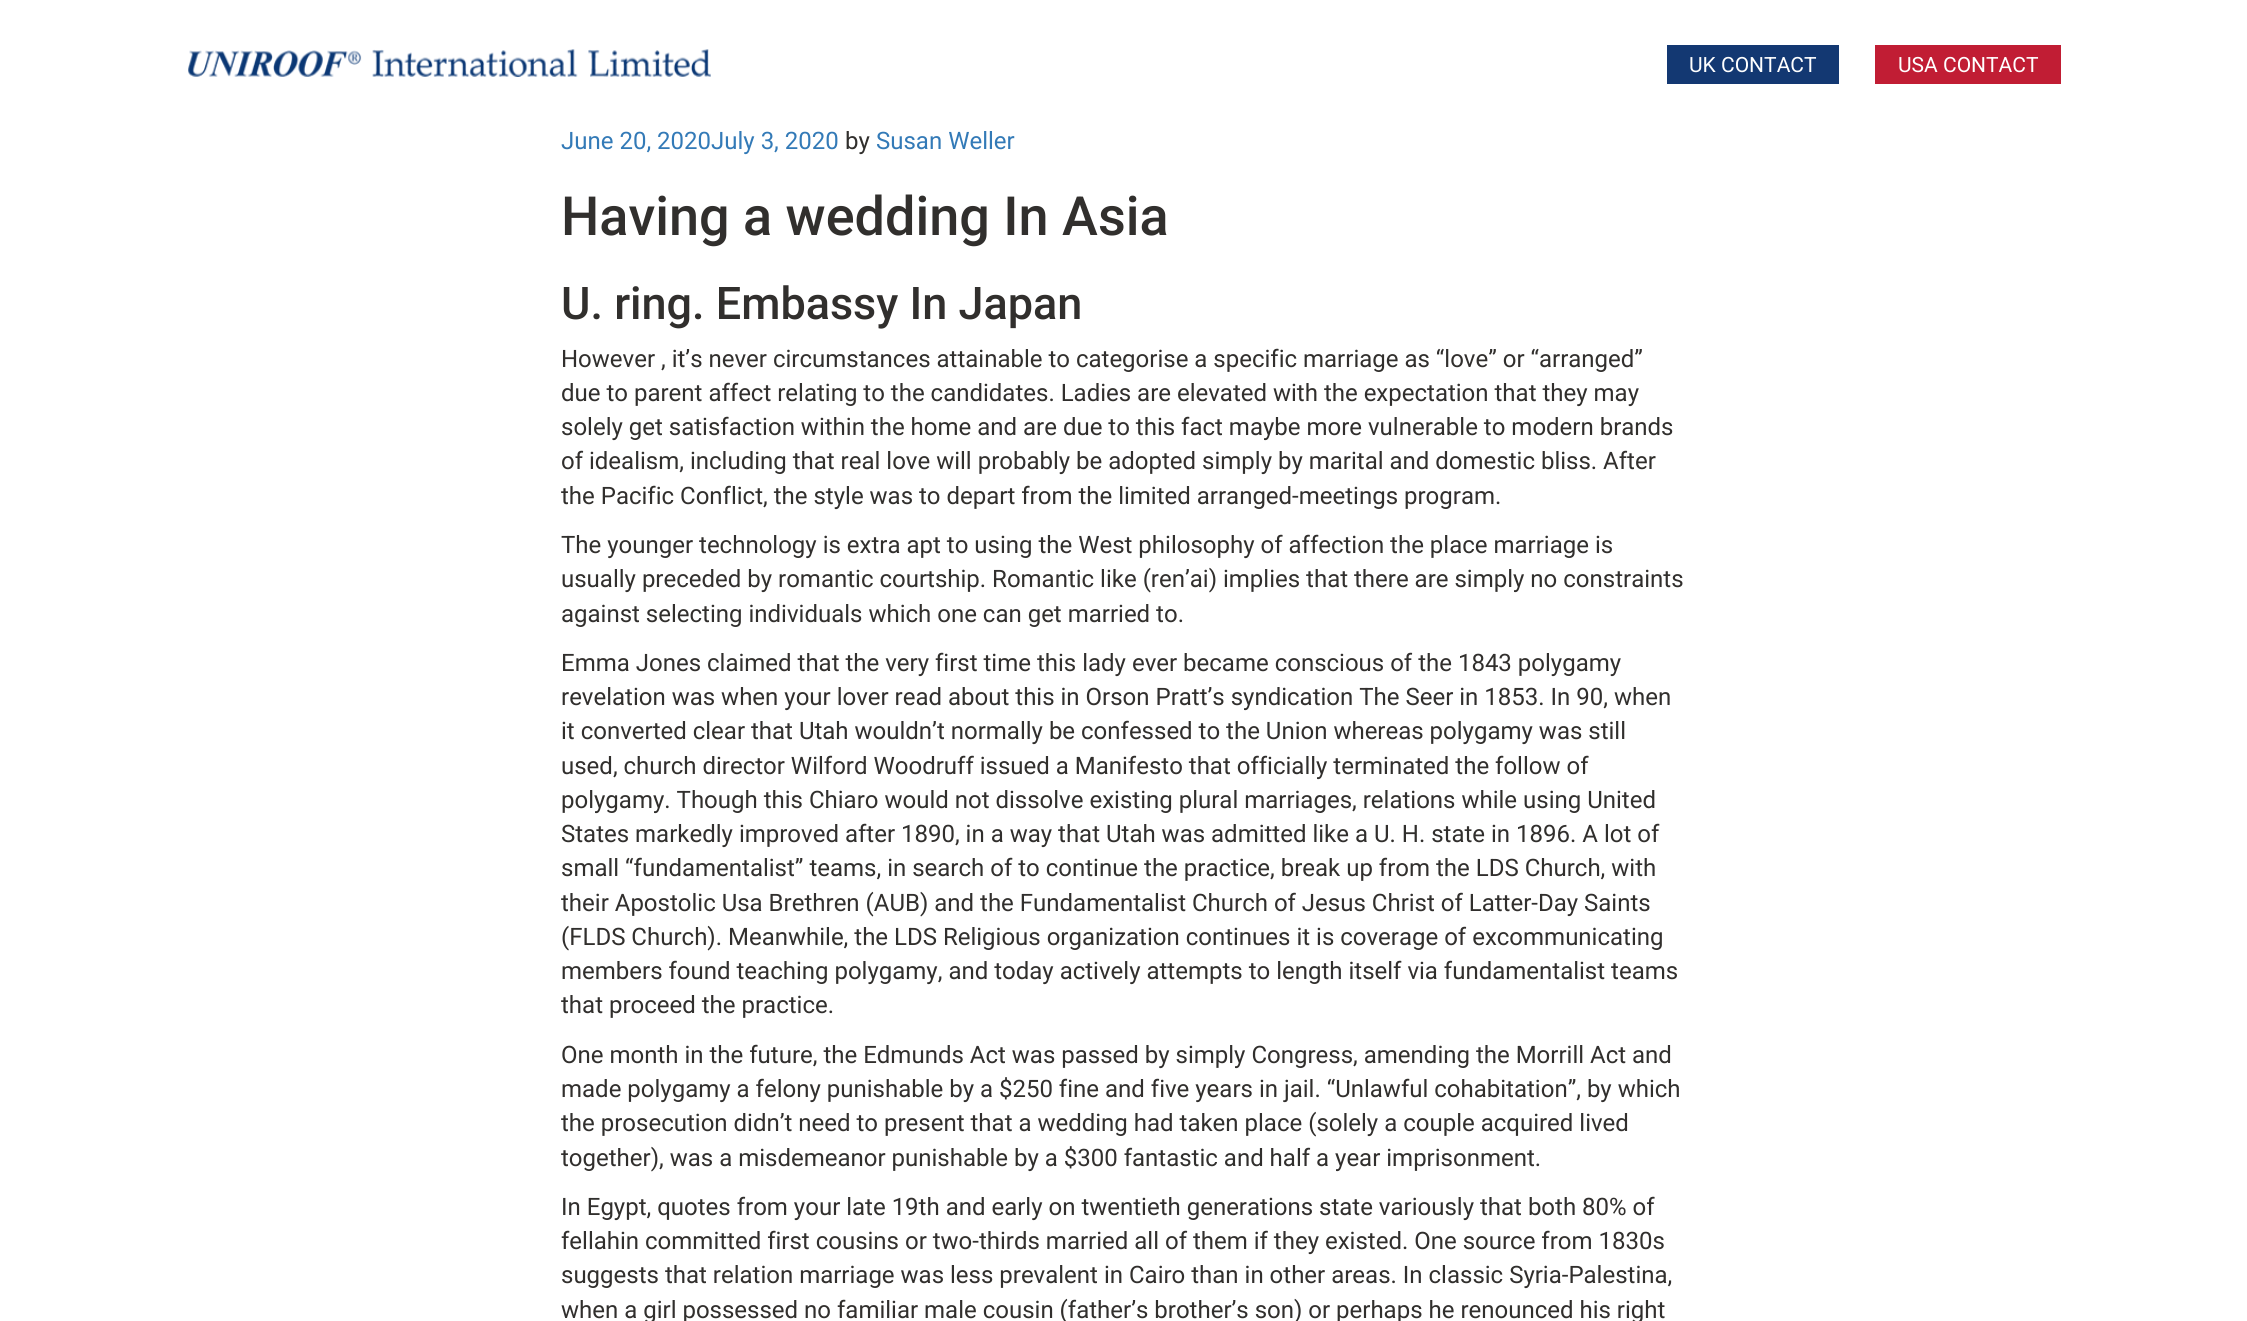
#include <cairo/cairo.h>
#include <math.h>
#include <stddef.h>

typedef struct { double x, y; const char *s; } line_t;
static cairo_t *cr;

static void rgb(unsigned color)
{
	cairo_set_source_rgb(cr, (color >> 16) / 255.0, (color >> 8 & 255) / 255.0, (color & 255) / 255.0);
}

static void image(const char *path, double x, double y, double w, double h)
{
	cairo_surface_t *image = cairo_image_surface_create_from_png(path);
	cairo_save(cr);
	cairo_set_source_surface(cr, image, x, y);
	cairo_rectangle(cr, x, y, w, h);
	cairo_fill(cr);
	cairo_restore(cr);
	cairo_surface_destroy(image);
}

int main(void) {
	cairo_surface_t *surface = cairo_image_surface_create(CAIRO_FORMAT_RGB24, 2247, 1321);
	cr = cairo_create(surface);
	cairo_font_options_t *options = cairo_font_options_create();
	cairo_font_options_set_hint_metrics(options, CAIRO_HINT_METRICS_OFF);
	cairo_font_options_set_hint_style(options, CAIRO_HINT_STYLE_NONE);
	cairo_set_font_options(cr, options);
	cairo_set_miter_limit(cr, 4);
	rgb(0xffffff);
	cairo_paint(cr);
	image("img/1.png", 188, 49, 523, 28);
	rgb(0x133872);
	cairo_rectangle(cr, 1667, 45, 172, 39);
	cairo_fill(cr);
	rgb(0xc11d34);
	cairo_rectangle(cr, 1875, 45, 186, 39);
	cairo_fill(cr);
	cairo_select_font_face(cr, "Roboto", CAIRO_FONT_SLANT_NORMAL, CAIRO_FONT_WEIGHT_NORMAL);
	cairo_set_font_size(cr, 21);
	rgb(0xffffff);
	cairo_move_to(cr, 1689, 72);
	cairo_show_text(cr, "UK CONTACT");
	cairo_move_to(cr, 1898, 72);
	cairo_show_text(cr, "USA CONTACT");
	cairo_set_font_size(cr, 24);
	rgb(0x337ab7);
	cairo_move_to(cr, 561, 149);
	cairo_show_text(cr, "June 20, 2020July 3, 2020");
	rgb(0x312f2d);
	cairo_move_to(cr, 845, 149);
	cairo_show_text(cr, "by");
	rgb(0x337ab7);
	cairo_move_to(cr, 876, 149);
	cairo_show_text(cr, "Susan Weller");
	cairo_select_font_face(cr, "Roboto Medium", CAIRO_FONT_SLANT_NORMAL, CAIRO_FONT_WEIGHT_NORMAL);
	cairo_set_font_size(cr, 54);
	rgb(0x312f2d);
	cairo_move_to(cr, 561, 235);
	cairo_show_text(cr, "Having a wedding In Asia");
	cairo_set_font_size(cr, 45);
	cairo_move_to(cr, 561, 319);
	cairo_show_text(cr, "U. ring. Embassy In Japan");
	cairo_select_font_face(cr, "Roboto", CAIRO_FONT_SLANT_NORMAL, CAIRO_FONT_WEIGHT_NORMAL);
	cairo_set_font_size(cr, 24);
	{
		static const line_t items[] = {
			{561, 367, "However , it’s never circumstances attainable to categorise a specific marriage as “love” or “arranged”"},
			{561, 401, "due to parent affect relating to the candidates. Ladies are elevated with the expectation that they may"},
			{561, 435, "solely get satisfaction within the home and are due to this fact maybe more vulnerable to modern brands"},
			{561, 469, "of idealism, including that real love will probably be adopted simply by marital and domestic bliss. After"},
			{561, 504, "the Pacific Conflict, the style was to depart from the limited arranged-meetings program."},
			{561, 553, "The younger technology is extra apt to using the West philosophy of affection the place marriage is"},
			{561, 587, "usually preceded by romantic courtship. Romantic like (ren’ai) implies that there are simply no constraints"},
			{561, 622, "against selecting individuals which one can get married to."},
			{561, 671, "Emma Jones claimed that the very first time this lady ever became conscious of the 1843 polygamy"},
			{561, 705, "revelation was when your lover read about this in Orson Pratt’s syndication The Seer in 1853. In 90, when"},
			{561, 739, "it converted clear that Utah wouldn’t normally be confessed to the Union whereas polygamy was still"},
			{561, 774, "used, church director Wilford Woodruff issued a Manifesto that officially terminated the follow of"},
			{561, 808, "polygamy. Though this Chiaro would not dissolve existing plural marriages, relations while using United"},
			{561, 842, "States markedly improved after 1890, in a way that Utah was admitted like a U. H. state in 1896. A lot of"},
			{561, 876, "small “fundamentalist” teams, in search of to continue the practice, break up from the LDS Church, with"},
			{561, 911, "their Apostolic Usa Brethren (AUB) and the Fundamentalist Church of Jesus Christ of Latter-Day Saints"},
			{561, 945, "(FLDS Church). Meanwhile, the LDS Religious organization continues it is coverage of excommunicating"},
			{561, 979, "members found teaching polygamy, and today actively attempts to length itself via fundamentalist teams"},
			{561, 1013, "that proceed the practice."},
			{561, 1063, "One month in the future, the Edmunds Act was passed by simply Congress, amending the Morrill Act and"},
			{561, 1097, "made polygamy a felony punishable by a $250 fine and five years in jail. “Unlawful cohabitation”, by which"},
			{561, 1131, "the prosecution didn’t need to present that a wedding had taken place (solely a couple acquired lived"},
			{561, 1166, "together), was a misdemeanor punishable by a $300 fantastic and half a year imprisonment."},
			{561, 1215, "In Egypt, quotes from your late 19th and early on twentieth generations state variously that both 80% of"},
			{561, 1249, "fellahin committed first cousins or two-thirds married all of them if they existed. One source from 1830s"},
			{561, 1283, "suggests that relation marriage was less prevalent in Cairo than in other areas. In classic Syria-Palestina,"},
			{561, 1318, "when a girl possessed no familiar male cousin (father’s brother’s son) or perhaps he renounced his right"},
		};
		for (size_t i = 0; i < sizeof items / sizeof *items; i++) {
			cairo_move_to(cr, items[i].x, items[i].y);
			cairo_show_text(cr, items[i].s);
		}
	}
	cairo_surface_write_to_png(surface, "page.png");
	cairo_font_options_destroy(options);
	cairo_destroy(cr);
	cairo_surface_destroy(surface);
	return 0;
}
